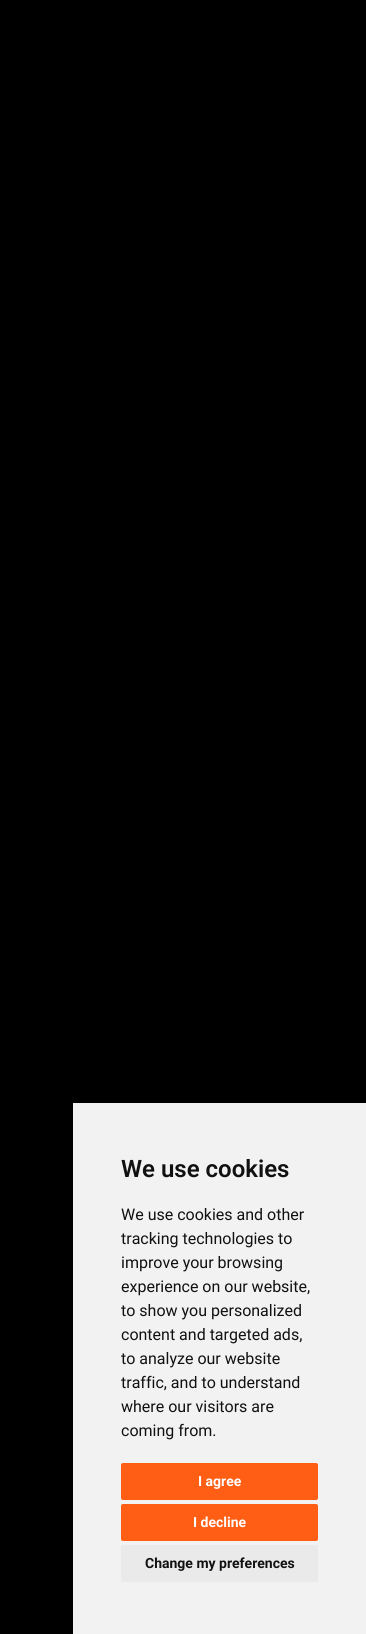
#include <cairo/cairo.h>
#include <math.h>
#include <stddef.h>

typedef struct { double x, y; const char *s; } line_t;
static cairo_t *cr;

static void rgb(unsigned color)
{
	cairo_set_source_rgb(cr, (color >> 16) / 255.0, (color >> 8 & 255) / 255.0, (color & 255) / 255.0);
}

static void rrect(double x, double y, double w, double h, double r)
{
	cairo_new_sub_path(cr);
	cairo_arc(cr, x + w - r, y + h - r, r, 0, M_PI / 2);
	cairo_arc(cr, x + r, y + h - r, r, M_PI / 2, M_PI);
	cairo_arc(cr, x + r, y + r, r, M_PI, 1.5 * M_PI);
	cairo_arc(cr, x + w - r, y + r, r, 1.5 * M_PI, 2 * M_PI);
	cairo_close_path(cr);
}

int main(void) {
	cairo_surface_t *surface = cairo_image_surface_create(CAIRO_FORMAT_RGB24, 366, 1634);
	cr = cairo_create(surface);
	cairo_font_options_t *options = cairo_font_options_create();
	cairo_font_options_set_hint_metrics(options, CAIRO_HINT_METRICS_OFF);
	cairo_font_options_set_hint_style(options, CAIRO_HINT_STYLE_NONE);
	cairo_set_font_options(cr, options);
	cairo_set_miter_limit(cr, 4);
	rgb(0x000000);
	cairo_paint(cr);
	rgb(0xf2f2f2);
	cairo_rectangle(cr, 73, 1103, 293, 531);
	cairo_fill(cr);
	rgb(0xff5e14);
	rrect(121, 1463, 197, 37, 2);
	cairo_fill(cr);
	rrect(121, 1504, 197, 37, 2);
	cairo_fill(cr);
	rgb(0xeaeaea);
	rrect(121, 1545, 197, 37, 2);
	cairo_fill(cr);
	cairo_select_font_face(cr, "Roboto SemiBold", CAIRO_FONT_SLANT_NORMAL, CAIRO_FONT_WEIGHT_NORMAL);
	cairo_set_font_size(cr, 24);
	rgb(0x111111);
	cairo_move_to(cr, 121, 1177);
	cairo_show_text(cr, "We use cookies");
	cairo_select_font_face(cr, "Roboto", CAIRO_FONT_SLANT_NORMAL, CAIRO_FONT_WEIGHT_NORMAL);
	cairo_set_font_size(cr, 16);
	{
		static const line_t items[] = {
			{121, 1220, "We use cookies and other"},
			{121, 1244, "tracking technologies to"},
			{121, 1268, "improve your browsing"},
			{121, 1292, "experience on our website,"},
			{121, 1316, "to show you personalized"},
			{121, 1340, "content and targeted ads,"},
			{121, 1364, "to analyze our website"},
			{121, 1388, "traffic, and to understand"},
			{121, 1412, "where our visitors are"},
			{121, 1436, "coming from."},
		};
		for (size_t i = 0; i < sizeof items / sizeof *items; i++) {
			cairo_move_to(cr, items[i].x, items[i].y);
			cairo_show_text(cr, items[i].s);
		}
	}
	cairo_select_font_face(cr, "Roboto", CAIRO_FONT_SLANT_NORMAL, CAIRO_FONT_WEIGHT_BOLD);
	cairo_set_font_size(cr, 14);
	rgb(0xffffff);
	cairo_move_to(cr, 198, 1486);
	cairo_show_text(cr, "I agree");
	cairo_move_to(cr, 193, 1527);
	cairo_show_text(cr, "I decline");
	rgb(0x111111);
	cairo_move_to(cr, 145, 1568);
	cairo_show_text(cr, "Change my preferences");
	cairo_surface_write_to_png(surface, "page.png");
	cairo_font_options_destroy(options);
	cairo_destroy(cr);
	cairo_surface_destroy(surface);
	return 0;
}
